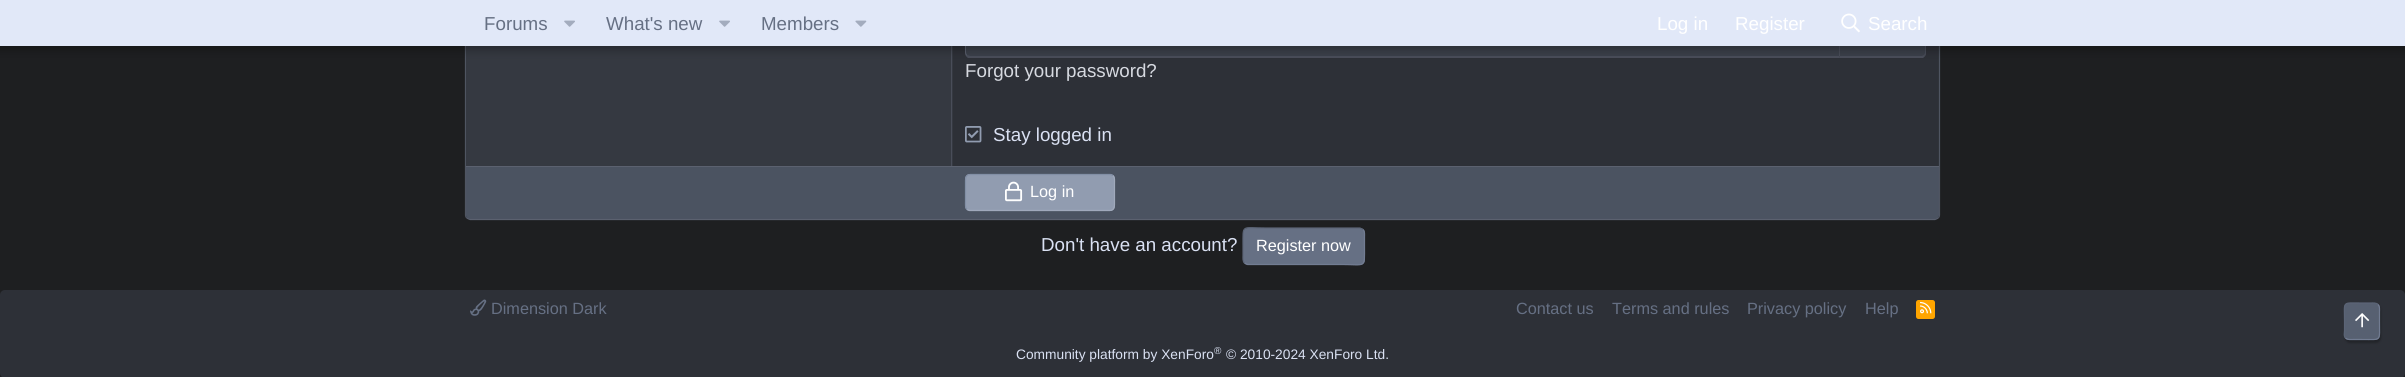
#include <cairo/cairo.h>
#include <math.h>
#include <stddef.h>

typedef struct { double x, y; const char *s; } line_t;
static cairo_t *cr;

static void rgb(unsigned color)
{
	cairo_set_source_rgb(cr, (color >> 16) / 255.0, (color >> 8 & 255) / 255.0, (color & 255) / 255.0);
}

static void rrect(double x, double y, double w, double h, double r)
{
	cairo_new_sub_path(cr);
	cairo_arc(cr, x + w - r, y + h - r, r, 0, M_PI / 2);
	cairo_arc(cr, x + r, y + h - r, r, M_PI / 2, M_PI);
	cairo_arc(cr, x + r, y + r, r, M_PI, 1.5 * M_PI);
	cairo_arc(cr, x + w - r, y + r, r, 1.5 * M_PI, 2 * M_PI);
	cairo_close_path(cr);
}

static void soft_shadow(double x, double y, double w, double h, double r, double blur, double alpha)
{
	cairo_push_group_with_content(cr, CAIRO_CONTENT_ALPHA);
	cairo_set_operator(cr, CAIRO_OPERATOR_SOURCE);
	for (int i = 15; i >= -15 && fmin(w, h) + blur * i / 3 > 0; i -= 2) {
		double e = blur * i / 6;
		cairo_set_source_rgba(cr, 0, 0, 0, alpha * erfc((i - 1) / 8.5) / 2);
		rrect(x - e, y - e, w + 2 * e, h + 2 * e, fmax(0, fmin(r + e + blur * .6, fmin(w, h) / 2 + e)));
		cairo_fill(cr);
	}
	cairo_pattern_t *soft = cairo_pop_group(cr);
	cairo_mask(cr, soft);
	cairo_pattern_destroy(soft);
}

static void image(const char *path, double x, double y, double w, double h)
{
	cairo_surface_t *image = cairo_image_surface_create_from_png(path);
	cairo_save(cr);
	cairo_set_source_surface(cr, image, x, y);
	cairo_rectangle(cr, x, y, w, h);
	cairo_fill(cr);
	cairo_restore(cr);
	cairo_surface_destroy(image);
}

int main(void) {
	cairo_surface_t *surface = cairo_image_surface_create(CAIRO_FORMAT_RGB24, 2405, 377);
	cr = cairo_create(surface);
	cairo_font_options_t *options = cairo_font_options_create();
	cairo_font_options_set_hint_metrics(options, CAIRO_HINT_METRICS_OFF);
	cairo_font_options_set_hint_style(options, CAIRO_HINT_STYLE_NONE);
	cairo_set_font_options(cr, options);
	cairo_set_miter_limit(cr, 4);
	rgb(0x1e1f21);
	cairo_paint(cr);
	rgb(0x2d3037);
	rrect(465, -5, 1475, 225, 5);
	cairo_fill(cr);
	cairo_new_path(cr);
	cairo_move_to(cr, 1938, -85.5);
	cairo_curve_to(cr, 1939, -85, 1939.5, -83.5, 1939.5, -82.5);
	cairo_line_to(cr, 1939.5, 215);
	cairo_curve_to(cr, 1939.5, 216, 1939, 217.5, 1938, 218);
	rgb(0x4f5561);
	cairo_set_line_width(cr, 1.2);
	cairo_stroke(cr);
	cairo_new_path(cr);
	cairo_move_to(cr, 1938, 218);
	cairo_line_to(cr, 1935, 219.5);
	cairo_line_to(cr, 470, 219.5);
	cairo_line_to(cr, 467, 218);
	rgb(0x5b616f);
	cairo_stroke(cr);
	cairo_new_path(cr);
	cairo_move_to(cr, 467, 218);
	cairo_curve_to(cr, 466, 217.5, 465.5, 216, 465.5, 215);
	cairo_line_to(cr, 465.5, -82.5);
	cairo_curve_to(cr, 465.5, -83.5, 466, -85, 467, -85.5);
	rgb(0x4f5561);
	cairo_stroke(cr);
	rgb(0x353941);
	cairo_rectangle(cr, 466, 46, 487, 120);
	cairo_fill(cr);
	rgb(0x494d59);
	cairo_rectangle(cr, 951, 46, 1, 120);
	cairo_fill(cr);
	rgb(0x3b404a);
	cairo_new_path(cr);
	cairo_move_to(cr, 970, 14);
	cairo_line_to(cr, 1839, 14);
	cairo_line_to(cr, 1839, 58);
	cairo_line_to(cr, 970, 58);
	cairo_curve_to(cr, 967, 58, 965, 56, 965, 53);
	cairo_line_to(cr, 965, 19);
	cairo_curve_to(cr, 965, 16, 967, 14, 970, 14);
	cairo_close_path(cr);
	cairo_fill(cr);
	rgb(0x494d59);
	cairo_new_path(cr);
	cairo_move_to(cr, 1839, 58);
	cairo_line_to(cr, 968, 58);
	cairo_line_to(cr, 966, 56);
	cairo_line_to(cr, 967, 55);
	cairo_line_to(cr, 970, 56);
	cairo_line_to(cr, 1839, 56);
	cairo_close_path(cr);
	cairo_fill(cr);
	rgb(0x5b616f);
	cairo_new_path(cr);
	cairo_move_to(cr, 967, 55);
	cairo_line_to(cr, 966, 56);
	cairo_curve_to(cr, 966, 55, 965, 54, 965, 52);
	cairo_line_to(cr, 965, 19);
	cairo_curve_to(cr, 965, 17, 966, 16, 967, 15);
	cairo_line_to(cr, 967, 16);
	cairo_curve_to(cr, 967, 17, 966, 18, 966, 19);
	cairo_line_to(cr, 966, 52);
	cairo_curve_to(cr, 966, 54, 967, 55, 967, 55);
	cairo_close_path(cr);
	cairo_fill(cr);
	rgb(0x3b404a);
	cairo_new_path(cr);
	cairo_move_to(cr, 1839, 14);
	cairo_line_to(cr, 1921, 14);
	cairo_curve_to(cr, 1924, 14, 1926, 16, 1926, 19);
	cairo_line_to(cr, 1926, 53);
	cairo_curve_to(cr, 1926, 56, 1924, 58, 1921, 58);
	cairo_line_to(cr, 1839, 58);
	cairo_close_path(cr);
	cairo_fill(cr);
	rgb(0x494d59);
	cairo_new_path(cr);
	cairo_move_to(cr, 1925, 15);
	cairo_curve_to(cr, 1926, 16, 1926, 18, 1926, 19);
	cairo_line_to(cr, 1926, 52);
	cairo_curve_to(cr, 1926, 53, 1926, 55, 1925, 56);
	cairo_line_to(cr, 1924, 55);
	cairo_curve_to(cr, 1925, 54, 1925, 53, 1925, 52);
	cairo_line_to(cr, 1925, 19);
	cairo_curve_to(cr, 1925, 18, 1924, 17, 1924, 16);
	cairo_close_path(cr);
	cairo_fill(cr);
	cairo_new_path(cr);
	cairo_move_to(cr, 1839, 58);
	cairo_line_to(cr, 1840, 56);
	cairo_line_to(cr, 1922, 56);
	cairo_line_to(cr, 1924, 55);
	cairo_line_to(cr, 1925, 56);
	cairo_line_to(cr, 1923, 58);
	cairo_close_path(cr);
	cairo_fill(cr);
	cairo_new_path(cr);
	cairo_move_to(cr, 1840, 15);
	cairo_line_to(cr, 1839, 14);
	cairo_line_to(cr, 1839, 57);
	cairo_line_to(cr, 1840, 56);
	cairo_close_path(cr);
	cairo_fill(cr);
	rgb(0x000000);
	soft_shadow(-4, -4, 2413, 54, 0, 5, 0.3);
	rgb(0xe1e8f8);
	cairo_rectangle(cr, 0, 0, 2405, 46);
	cairo_fill(cr);
	image("img/1.png", 564, 20, 11, 7);
	image("img/1.png", 719, 20, 11, 7);
	image("img/2.png", 855, 20, 12, 7);
	image("img/3.png", 1841, 13, 19, 20);
	image("img/4.png", 965, 126, 17, 17);
	cairo_set_source_rgba(cr, 0.31, 0.341, 0.4, 0.9);
	cairo_new_path(cr);
	cairo_move_to(cr, 466, 166);
	cairo_line_to(cr, 1939, 166);
	cairo_line_to(cr, 1939, 215);
	cairo_curve_to(cr, 1939, 217, 1937, 219, 1935, 219);
	cairo_line_to(cr, 470, 219);
	cairo_curve_to(cr, 468, 219, 466, 217, 466, 215);
	cairo_close_path(cr);
	cairo_fill(cr);
	rgb(0x5b616f);
	cairo_rectangle(cr, 466, 166, 1473, 1);
	cairo_fill(cr);
	rgb(0x919cb0);
	rrect(965, 174, 150, 37, 5);
	cairo_fill(cr);
	cairo_new_path(cr);
	cairo_move_to(cr, 1113, 175.5);
	cairo_curve_to(cr, 1115, 177.5, 1114.5, 181, 1114.5, 183.5);
	cairo_line_to(cr, 1114.5, 201.5);
	cairo_curve_to(cr, 1114.5, 205, 1115, 210.5, 1110, 210.5);
	cairo_line_to(cr, 969.5, 210.5);
	cairo_line_to(cr, 967, 209.5);
	rgb(0xa0a9bb);
	cairo_stroke(cr);
	cairo_new_path(cr);
	cairo_move_to(cr, 967, 209.5);
	cairo_curve_to(cr, 965, 207.5, 965.5, 204, 965.5, 201.5);
	cairo_line_to(cr, 965.5, 183.5);
	cairo_curve_to(cr, 965.5, 180, 965, 174.5, 970, 174.5);
	cairo_line_to(cr, 1110.5, 174.5);
	cairo_line_to(cr, 1113, 175.5);
	rgb(0x828fa5);
	cairo_stroke(cr);
	image("img/5.png", 1005, 181, 18, 21);
	rgb(0x667084);
	rrect(1243, 228, 122, 37, 5);
	cairo_fill(cr);
	cairo_new_path(cr);
	cairo_move_to(cr, 1363, 229.5);
	cairo_curve_to(cr, 1365, 231.5, 1364.5, 234.5, 1364.5, 237);
	cairo_line_to(cr, 1364.5, 246);
	cairo_curve_to(cr, 1364.5, 269, 1366.5, 264.5, 1341, 264.5);
	cairo_line_to(cr, 1247.5, 264.5);
	cairo_line_to(cr, 1244.5, 263);
	rgb(0x727c92);
	cairo_stroke(cr);
	cairo_new_path(cr);
	cairo_move_to(cr, 1244.5, 263);
	cairo_curve_to(cr, 1242.5, 261, 1243, 258, 1243, 255.5);
	cairo_line_to(cr, 1243, 246);
	cairo_curve_to(cr, 1243, 223.5, 1241, 228, 1266, 228);
	cairo_line_to(cr, 1360, 228);
	cairo_line_to(cr, 1363, 229.5);
	rgb(0x5b6476);
	cairo_stroke(cr);
	rgb(0x2d3037);
	rrect(0, 290, 2405, 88, 5);
	cairo_fill(cr);
	image("img/6.png", 470, 299, 17, 17);
	rgb(0xffa500);
	rrect(1916, 300, 19, 19, 2.5);
	cairo_fill(cr);
	image("img/7.png", 1920, 301, 12, 13);
	cairo_save(cr);
	cairo_set_fill_rule(cr, CAIRO_FILL_RULE_EVEN_ODD);
	cairo_new_path(cr);
	cairo_move_to(cr, 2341, 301);
	cairo_line_to(cr, 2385, 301);
	cairo_line_to(cr, 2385, 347);
	cairo_line_to(cr, 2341, 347);
	cairo_close_path(cr);
	cairo_move_to(cr, 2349, 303);
	cairo_line_to(cr, 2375, 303);
	cairo_curve_to(cr, 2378, 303, 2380, 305, 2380, 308);
	cairo_line_to(cr, 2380, 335);
	cairo_curve_to(cr, 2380, 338, 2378, 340, 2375, 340);
	cairo_line_to(cr, 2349, 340);
	cairo_curve_to(cr, 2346, 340, 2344, 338, 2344, 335);
	cairo_line_to(cr, 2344, 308);
	cairo_curve_to(cr, 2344, 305, 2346, 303, 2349, 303);
	cairo_close_path(cr);
	cairo_clip(cr);
	rgb(0x000000);
	soft_shadow(2345, 305, 36, 38, 5, 1, 0.25);
	cairo_restore(cr);
	cairo_set_source_rgba(cr, 0.4, 0.439, 0.518, 0.75);
	rrect(2344, 303, 36, 37, 5);
	cairo_fill(cr);
	cairo_new_path(cr);
	cairo_move_to(cr, 2378, 304.5);
	cairo_curve_to(cr, 2380, 306.5, 2379.5, 309.5, 2379.5, 312);
	cairo_line_to(cr, 2379.5, 321);
	cairo_curve_to(cr, 2379.5, 342, 2382, 339.5, 2362, 339.5);
	cairo_line_to(cr, 2353, 339.5);
	cairo_curve_to(cr, 2351, 339.5, 2347.5, 340, 2345.5, 338);
	rgb(0x727c92);
	cairo_stroke(cr);
	cairo_new_path(cr);
	cairo_move_to(cr, 2345.5, 338);
	cairo_curve_to(cr, 2343.5, 336, 2344.5, 333, 2344.5, 330.5);
	cairo_line_to(cr, 2344.5, 321);
	cairo_curve_to(cr, 2344.5, 300.5, 2341.5, 303, 2362, 303);
	cairo_line_to(cr, 2370.5, 303);
	cairo_curve_to(cr, 2373, 303, 2376, 302.5, 2378, 304.5);
	rgb(0x5b6476);
	cairo_stroke(cr);
	image("img/8.png", 2355, 313, 15, 15);
	cairo_select_font_face(cr, "Liberation Sans", CAIRO_FONT_SLANT_NORMAL, CAIRO_FONT_WEIGHT_NORMAL);
	cairo_set_font_size(cr, 18.75);
	rgb(0x667084);
	{
		static const line_t items[] = {
			{484, 30, "Forums"},
			{606, 30, "What's new"},
			{761, 30, "Members"},
		};
		for (size_t i = 0; i < sizeof items / sizeof *items; i++) {
			cairo_move_to(cr, items[i].x, items[i].y);
			cairo_show_text(cr, items[i].s);
		}
	}
	rgb(0xffffff);
	{
		static const line_t items[] = {
			{1657, 30, "Log in"},
			{1735, 30, "Register"},
			{1868, 30, "Search"},
		};
		for (size_t i = 0; i < sizeof items / sizeof *items; i++) {
			cairo_move_to(cr, items[i].x, items[i].y);
			cairo_show_text(cr, items[i].s);
		}
	}
	rgb(0xd6d9e0);
	cairo_move_to(cr, 965, 77);
	cairo_show_text(cr, "Forgot your password?");
	rgb(0xdae1f3);
	cairo_move_to(cr, 993, 141);
	cairo_show_text(cr, "Stay logged in");
	cairo_set_font_size(cr, 16.25);
	rgb(0xffffff);
	cairo_move_to(cr, 1030, 197);
	cairo_show_text(cr, "Log in");
	cairo_set_font_size(cr, 18.75);
	rgb(0xdae1f3);
	cairo_move_to(cr, 1041, 251);
	cairo_show_text(cr, "Don't have an account?");
	cairo_set_font_size(cr, 16.25);
	rgb(0xffffff);
	cairo_move_to(cr, 1256, 251);
	cairo_show_text(cr, "Register now");
	rgb(0x667084);
	{
		static const line_t items[] = {
			{491, 314, "Dimension Dark"},
			{1516, 314, "Contact us"},
			{1612, 314, "Terms and rules"},
			{1747, 314, "Privacy policy"},
			{1865, 314, "Help"},
		};
		for (size_t i = 0; i < sizeof items / sizeof *items; i++) {
			cairo_move_to(cr, items[i].x, items[i].y);
			cairo_show_text(cr, items[i].s);
		}
	}
	cairo_set_font_size(cr, 13.75);
	rgb(0xdae1f3);
	cairo_move_to(cr, 1016, 359);
	cairo_show_text(cr, "Community platform by XenForo");
	cairo_set_font_size(cr, 10);
	cairo_move_to(cr, 1214, 354);
	cairo_show_text(cr, "®");
	cairo_set_font_size(cr, 13.75);
	cairo_move_to(cr, 1226, 359);
	cairo_show_text(cr, "© 2010-2024 XenForo Ltd.");
	cairo_surface_write_to_png(surface, "page.png");
	cairo_font_options_destroy(options);
	cairo_destroy(cr);
	cairo_surface_destroy(surface);
	return 0;
}
